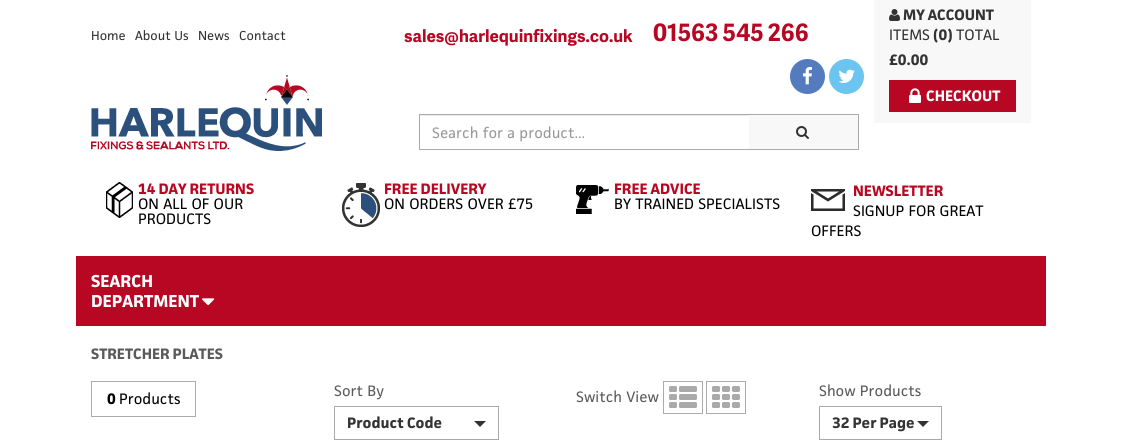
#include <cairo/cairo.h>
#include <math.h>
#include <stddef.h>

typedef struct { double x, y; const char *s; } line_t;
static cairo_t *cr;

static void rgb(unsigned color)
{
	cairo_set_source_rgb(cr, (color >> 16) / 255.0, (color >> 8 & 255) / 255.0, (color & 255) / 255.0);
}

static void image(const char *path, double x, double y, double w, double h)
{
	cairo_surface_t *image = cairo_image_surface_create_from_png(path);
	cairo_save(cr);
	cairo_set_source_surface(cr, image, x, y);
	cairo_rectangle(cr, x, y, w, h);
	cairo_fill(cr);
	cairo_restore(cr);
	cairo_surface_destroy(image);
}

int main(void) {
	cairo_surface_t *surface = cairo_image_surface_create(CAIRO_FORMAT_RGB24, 1122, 443);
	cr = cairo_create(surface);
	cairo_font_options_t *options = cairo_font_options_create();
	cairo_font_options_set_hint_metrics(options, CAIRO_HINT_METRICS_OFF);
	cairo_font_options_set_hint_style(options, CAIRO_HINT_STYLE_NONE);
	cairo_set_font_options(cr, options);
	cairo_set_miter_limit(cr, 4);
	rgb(0xffffff);
	cairo_paint(cr);
	image("img/1.png", 91, 75, 231, 76);
	rgb(0x537bbd);
	cairo_arc(cr, 807.5, 76.5, 17.5, 0, 2 * M_PI);
	cairo_fill(cr);
	image("img/2.png", 803, 67, 9, 18);
	rgb(0x6bc5f0);
	cairo_arc(cr, 846.5, 76.5, 17.5, 0, 2 * M_PI);
	cairo_fill(cr);
	image("img/3.png", 838, 69, 17, 14);
	cairo_rectangle(cr, 419.5, 114.5, 439, 35);
	rgb(0xaaaaaa);
	cairo_set_line_width(cr, 1);
	cairo_stroke(cr);
	rgb(0xececec);
	cairo_rectangle(cr, 420, 115, 329, 1);
	cairo_fill(cr);
	rgb(0xf8f8f8);
	cairo_rectangle(cr, 749, 115, 109, 34);
	cairo_fill(cr);
	image("img/4.png", 796, 126, 13, 13);
	cairo_rectangle(cr, 874, 0, 157, 123);
	cairo_fill(cr);
	image("img/5.png", 889, 9, 11, 12);
	rgb(0xb80723);
	cairo_rectangle(cr, 889, 80, 127, 32);
	cairo_fill(cr);
	image("img/6.png", 909, 88, 12, 15);
	image("img/7.png", 106, 182, 27, 36);
	image("img/8.png", 342, 183, 42, 44);
	image("img/9.png", 576, 185, 33, 29);
	image("img/10.png", 811, 189, 34, 22);
	cairo_rectangle(cr, 76, 256, 970, 70);
	cairo_fill(cr);
	image("img/11.png", 202, 298, 13, 8);
	cairo_rectangle(cr, 91.5, 381.5, 104, 35);
	rgb(0xababab);
	cairo_stroke(cr);
	cairo_rectangle(cr, 334.5, 406.5, 164, 33);
	rgb(0xaaaaaa);
	cairo_stroke(cr);
	rgb(0x333333);
	cairo_new_path(cr);
	cairo_move_to(cr, 474, 421);
	cairo_line_to(cr, 486, 421);
	cairo_line_to(cr, 480, 427);
	cairo_close_path(cr);
	cairo_fill(cr);
	cairo_rectangle(cr, 663.5, 381.5, 39, 32);
	rgb(0xababab);
	cairo_stroke(cr);
	image("img/12.png", 669, 386, 28, 22);
	cairo_rectangle(cr, 706.5, 381.5, 39, 32);
	cairo_stroke(cr);
	image("img/13.png", 712, 386, 28, 22);
	cairo_rectangle(cr, 819.5, 406.5, 122, 33);
	rgb(0xaaaaaa);
	cairo_stroke(cr);
	rgb(0x333333);
	cairo_new_path(cr);
	cairo_move_to(cr, 917, 421);
	cairo_line_to(cr, 929, 421);
	cairo_line_to(cr, 923, 427);
	cairo_close_path(cr);
	cairo_fill(cr);
	cairo_select_font_face(cr, "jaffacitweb", CAIRO_FONT_SLANT_NORMAL, CAIRO_FONT_WEIGHT_NORMAL);
	cairo_set_font_size(cr, 12);
	{
		static const line_t items[] = {
			{91, 40, "Home"},
			{135, 40, "About Us"},
			{198, 40, "News"},
			{239, 40, "Contact"},
		};
		for (size_t i = 0; i < sizeof items / sizeof *items; i++) {
			cairo_move_to(cr, items[i].x, items[i].y);
			cairo_show_text(cr, items[i].s);
		}
	}
	cairo_select_font_face(cr, "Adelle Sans", CAIRO_FONT_SLANT_NORMAL, CAIRO_FONT_WEIGHT_BOLD);
	cairo_set_font_size(cr, 17);
	rgb(0xb80723);
	cairo_move_to(cr, 404, 42);
	cairo_show_text(cr, "sales@harlequinfixings.co.uk");
	cairo_set_font_size(cr, 24);
	cairo_move_to(cr, 653, 41);
	cairo_show_text(cr, "01563 545 266");
	cairo_select_font_face(cr, "jaffacitweb", CAIRO_FONT_SLANT_NORMAL, CAIRO_FONT_WEIGHT_NORMAL);
	cairo_set_font_size(cr, 14);
	rgb(0x999999);
	cairo_move_to(cr, 432, 138);
	cairo_show_text(cr, "Search for a product...");
	cairo_select_font_face(cr, "jaffacitweb", CAIRO_FONT_SLANT_NORMAL, CAIRO_FONT_WEIGHT_BOLD);
	rgb(0x333333);
	cairo_move_to(cr, 903, 20);
	cairo_show_text(cr, "MY ACCOUNT");
	cairo_select_font_face(cr, "jaffacitweb", CAIRO_FONT_SLANT_NORMAL, CAIRO_FONT_WEIGHT_NORMAL);
	cairo_move_to(cr, 889, 40);
	cairo_show_text(cr, "ITEMS");
	cairo_select_font_face(cr, "jaffacitweb", CAIRO_FONT_SLANT_NORMAL, CAIRO_FONT_WEIGHT_BOLD);
	cairo_move_to(cr, 933, 40);
	cairo_show_text(cr, "(0)");
	cairo_select_font_face(cr, "jaffacitweb", CAIRO_FONT_SLANT_NORMAL, CAIRO_FONT_WEIGHT_NORMAL);
	cairo_move_to(cr, 956, 40);
	cairo_show_text(cr, "TOTAL");
	cairo_select_font_face(cr, "jaffacitweb", CAIRO_FONT_SLANT_NORMAL, CAIRO_FONT_WEIGHT_BOLD);
	cairo_move_to(cr, 889, 65);
	cairo_show_text(cr, "£0.00");
	rgb(0xffffff);
	cairo_move_to(cr, 926, 101);
	cairo_show_text(cr, "CHECKOUT");
	rgb(0xb80723);
	cairo_move_to(cr, 138, 194);
	cairo_show_text(cr, "14 DAY RETURNS");
	cairo_select_font_face(cr, "jaffacitweb", CAIRO_FONT_SLANT_NORMAL, CAIRO_FONT_WEIGHT_NORMAL);
	rgb(0x000000);
	cairo_move_to(cr, 138, 209);
	cairo_show_text(cr, "ON ALL OF OUR");
	cairo_move_to(cr, 138, 224);
	cairo_show_text(cr, "PRODUCTS");
	cairo_select_font_face(cr, "jaffacitweb", CAIRO_FONT_SLANT_NORMAL, CAIRO_FONT_WEIGHT_BOLD);
	rgb(0xb80723);
	cairo_move_to(cr, 384, 194);
	cairo_show_text(cr, "FREE DELIVERY");
	cairo_select_font_face(cr, "jaffacitweb", CAIRO_FONT_SLANT_NORMAL, CAIRO_FONT_WEIGHT_NORMAL);
	rgb(0x000000);
	cairo_move_to(cr, 384, 209);
	cairo_show_text(cr, "ON ORDERS OVER £75");
	cairo_select_font_face(cr, "jaffacitweb", CAIRO_FONT_SLANT_NORMAL, CAIRO_FONT_WEIGHT_BOLD);
	rgb(0xb80723);
	cairo_move_to(cr, 614, 194);
	cairo_show_text(cr, "FREE ADVICE");
	cairo_select_font_face(cr, "jaffacitweb", CAIRO_FONT_SLANT_NORMAL, CAIRO_FONT_WEIGHT_NORMAL);
	rgb(0x000000);
	cairo_move_to(cr, 614, 209);
	cairo_show_text(cr, "BY TRAINED SPECIALISTS");
	cairo_select_font_face(cr, "jaffacitweb", CAIRO_FONT_SLANT_NORMAL, CAIRO_FONT_WEIGHT_BOLD);
	rgb(0xb80723);
	cairo_move_to(cr, 853, 196);
	cairo_show_text(cr, "NEWSLETTER");
	cairo_select_font_face(cr, "jaffacitweb", CAIRO_FONT_SLANT_NORMAL, CAIRO_FONT_WEIGHT_NORMAL);
	rgb(0x000000);
	cairo_move_to(cr, 853, 216);
	cairo_show_text(cr, "SIGNUP FOR GREAT");
	cairo_move_to(cr, 811, 236);
	cairo_show_text(cr, "OFFERS");
	cairo_select_font_face(cr, "jaffacitweb", CAIRO_FONT_SLANT_NORMAL, CAIRO_FONT_WEIGHT_BOLD);
	cairo_set_font_size(cr, 16);
	rgb(0xffffff);
	cairo_move_to(cr, 91, 287);
	cairo_show_text(cr, "SEARCH");
	cairo_move_to(cr, 91, 307);
	cairo_show_text(cr, "DEPARTMENT");
	cairo_set_font_size(cr, 14);
	rgb(0x5a5a5a);
	cairo_move_to(cr, 91, 359);
	cairo_show_text(cr, "STRETCHER PLATES");
	rgb(0x000000);
	cairo_move_to(cr, 107, 404);
	cairo_show_text(cr, "0");
	cairo_select_font_face(cr, "jaffacitweb", CAIRO_FONT_SLANT_NORMAL, CAIRO_FONT_WEIGHT_NORMAL);
	cairo_move_to(cr, 119, 404);
	cairo_show_text(cr, "Products");
	rgb(0x5a5a5a);
	cairo_move_to(cr, 334, 396);
	cairo_show_text(cr, "Sort By");
	cairo_select_font_face(cr, "jaffacitweb", CAIRO_FONT_SLANT_NORMAL, CAIRO_FONT_WEIGHT_BOLD);
	rgb(0x333333);
	cairo_move_to(cr, 347, 428);
	cairo_show_text(cr, "Product Code");
	cairo_select_font_face(cr, "jaffacitweb", CAIRO_FONT_SLANT_NORMAL, CAIRO_FONT_WEIGHT_NORMAL);
	rgb(0x5a5a5a);
	cairo_move_to(cr, 576, 402);
	cairo_show_text(cr, "Switch View");
	cairo_move_to(cr, 819, 396);
	cairo_show_text(cr, "Show Products");
	cairo_select_font_face(cr, "jaffacitweb", CAIRO_FONT_SLANT_NORMAL, CAIRO_FONT_WEIGHT_BOLD);
	rgb(0x333333);
	cairo_move_to(cr, 832, 428);
	cairo_show_text(cr, "32 Per Page");
	cairo_surface_write_to_png(surface, "page.png");
	cairo_font_options_destroy(options);
	cairo_destroy(cr);
	cairo_surface_destroy(surface);
	return 0;
}
